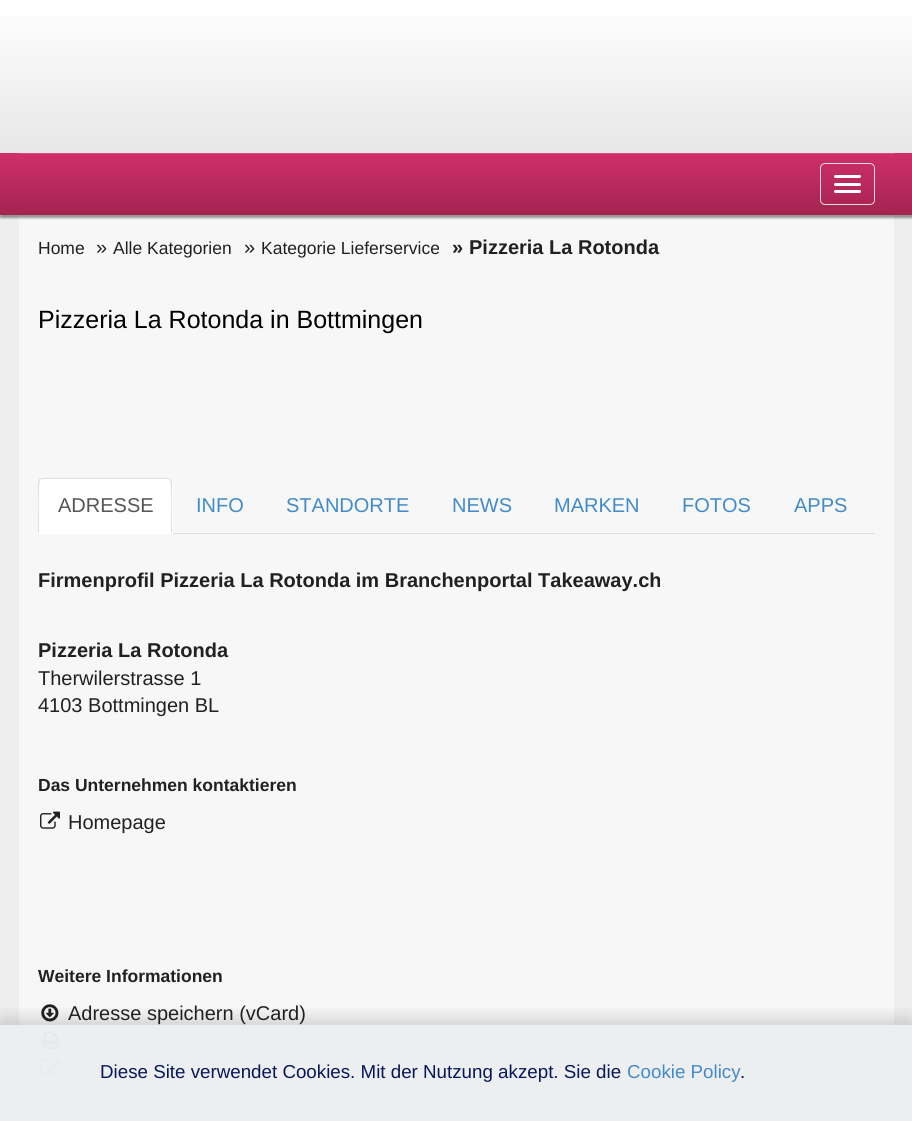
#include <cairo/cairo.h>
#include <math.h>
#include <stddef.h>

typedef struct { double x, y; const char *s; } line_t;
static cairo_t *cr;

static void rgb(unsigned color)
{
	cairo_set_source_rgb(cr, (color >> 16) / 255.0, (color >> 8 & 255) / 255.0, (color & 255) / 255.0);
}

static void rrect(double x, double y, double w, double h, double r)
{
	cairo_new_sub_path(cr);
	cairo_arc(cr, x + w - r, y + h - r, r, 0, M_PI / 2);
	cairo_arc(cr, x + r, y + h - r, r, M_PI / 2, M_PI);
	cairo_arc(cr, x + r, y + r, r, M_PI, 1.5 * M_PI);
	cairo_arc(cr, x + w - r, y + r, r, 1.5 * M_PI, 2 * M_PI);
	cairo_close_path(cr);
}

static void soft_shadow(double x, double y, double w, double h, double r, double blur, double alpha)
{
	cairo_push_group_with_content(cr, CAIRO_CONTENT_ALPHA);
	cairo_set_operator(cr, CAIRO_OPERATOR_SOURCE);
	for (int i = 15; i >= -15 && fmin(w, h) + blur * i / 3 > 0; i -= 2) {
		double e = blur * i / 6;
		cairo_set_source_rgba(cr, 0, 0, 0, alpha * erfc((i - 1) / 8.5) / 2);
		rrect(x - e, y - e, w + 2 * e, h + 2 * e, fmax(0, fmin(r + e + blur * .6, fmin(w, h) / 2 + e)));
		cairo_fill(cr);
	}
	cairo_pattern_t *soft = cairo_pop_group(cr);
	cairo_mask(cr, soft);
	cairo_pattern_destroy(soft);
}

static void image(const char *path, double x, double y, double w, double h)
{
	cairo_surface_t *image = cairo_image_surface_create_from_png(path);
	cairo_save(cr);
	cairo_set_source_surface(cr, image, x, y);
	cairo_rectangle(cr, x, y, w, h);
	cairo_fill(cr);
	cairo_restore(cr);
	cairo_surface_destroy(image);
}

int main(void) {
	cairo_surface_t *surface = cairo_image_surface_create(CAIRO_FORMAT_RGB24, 912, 1121);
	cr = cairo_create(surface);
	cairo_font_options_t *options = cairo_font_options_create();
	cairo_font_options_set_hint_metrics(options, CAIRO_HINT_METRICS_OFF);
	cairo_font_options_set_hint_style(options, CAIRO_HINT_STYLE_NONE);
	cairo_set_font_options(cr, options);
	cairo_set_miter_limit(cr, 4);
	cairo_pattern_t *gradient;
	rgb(0xffffff);
	cairo_paint(cr);
	gradient = cairo_pattern_create_linear(456, 0, 456, 153);
	cairo_pattern_add_color_stop_rgba(gradient, 0, 1, 1, 1, 1);
	cairo_pattern_add_color_stop_rgba(gradient, 1, 0.906, 0.906, 0.906, 1);
	cairo_set_source(cr, gradient);
	cairo_pattern_destroy(gradient);
	cairo_rectangle(cr, 0, 16, 912, 137);
	cairo_fill(cr);
	rgb(0xeeeeee);
	cairo_rectangle(cr, 0, 215, 912, 810);
	cairo_fill(cr);
	rgb(0xf7f7f7);
	cairo_rectangle(cr, 19, 215, 875, 810);
	cairo_fill(cr);
	rgb(0x000000);
	soft_shadow(0, 155, 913, 63, 0, 1, 0.39);
	gradient = cairo_pattern_create_linear(456, 152, 456, 215);
	cairo_pattern_add_color_stop_rgba(gradient, 0.01, 0.816, 0.184, 0.404, 1);
	cairo_pattern_add_color_stop_rgba(gradient, 1, 0.639, 0.141, 0.314, 1);
	cairo_set_source(cr, gradient);
	cairo_pattern_destroy(gradient);
	cairo_rectangle(cr, 0, 153, 912, 62);
	cairo_fill(cr);
	rgb(0xd64e7e);
	cairo_rectangle(cr, 19, 153, 875, 1);
	cairo_fill(cr);
	rrect(820.5, 163.5, 54, 41, 4.5);
	rgb(0xdddddd);
	cairo_set_line_width(cr, 1);
	cairo_stroke(cr);
	rgb(0xffffff);
	rrect(834, 175, 27, 3, 1.5);
	cairo_fill(cr);
	rrect(834, 183, 27, 3, 1.5);
	cairo_fill(cr);
	rrect(834, 190, 27, 3, 1.5);
	cairo_fill(cr);
	rgb(0xedeeef);
	cairo_rectangle(cr, 0, 1025, 912, 96);
	cairo_fill(cr);
	rgb(0xdddddd);
	cairo_rectangle(cr, 173, 533, 702, 1);
	cairo_fill(cr);
	rgb(0xffffff);
	cairo_new_path(cr);
	cairo_move_to(cr, 43, 478);
	cairo_line_to(cr, 168, 478);
	cairo_curve_to(cr, 171, 478, 173, 480, 173, 483);
	cairo_line_to(cr, 173, 534);
	cairo_line_to(cr, 38, 534);
	cairo_line_to(cr, 38, 483);
	cairo_curve_to(cr, 38, 480, 40, 478, 43, 478);
	cairo_close_path(cr);
	cairo_fill(cr);
	rgb(0xdddddd);
	cairo_new_path(cr);
	cairo_move_to(cr, 42, 478);
	cairo_line_to(cr, 39, 479);
	cairo_line_to(cr, 40, 480);
	cairo_line_to(cr, 42, 479);
	cairo_line_to(cr, 168, 479);
	cairo_line_to(cr, 170, 480);
	cairo_line_to(cr, 171, 479);
	cairo_line_to(cr, 168, 478);
	cairo_close_path(cr);
	cairo_fill(cr);
	cairo_new_path(cr);
	cairo_move_to(cr, 172, 533);
	cairo_line_to(cr, 172, 482);
	cairo_line_to(cr, 171, 479);
	cairo_line_to(cr, 170, 480);
	cairo_curve_to(cr, 172, 482, 171, 526, 171, 532);
	cairo_close_path(cr);
	cairo_fill(cr);
	cairo_new_path(cr);
	cairo_move_to(cr, 39, 479);
	cairo_line_to(cr, 38, 482);
	cairo_line_to(cr, 38, 533);
	cairo_line_to(cr, 39, 532);
	cairo_curve_to(cr, 39, 526, 38, 482, 40, 480);
	cairo_close_path(cr);
	cairo_fill(cr);
	image("img/1.png", 40, 811, 20, 18);
	image("img/2.png", 41, 1004, 18, 18);
	image("img/3.png", 41, 1031, 19, 18);
	image("img/4.png", 40, 1059, 20, 16);
	cairo_save(cr);
	cairo_rectangle(cr, 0, 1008, 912, 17);
	cairo_clip(cr);
	rgb(0x000000);
	soft_shadow(1, 1020, 910, 94, 0, 9.5, 0.18);
	cairo_restore(cr);
	cairo_select_font_face(cr, "Liberation Sans", CAIRO_FONT_SLANT_NORMAL, CAIRO_FONT_WEIGHT_NORMAL);
	cairo_set_font_size(cr, 17.5);
	rgb(0x212121);
	cairo_move_to(cr, 38, 254);
	cairo_show_text(cr, "Home");
	cairo_set_font_size(cr, 20);
	cairo_move_to(cr, 96, 254);
	cairo_show_text(cr, "»");
	cairo_set_font_size(cr, 17.5);
	cairo_move_to(cr, 113, 254);
	cairo_show_text(cr, "Alle Kategorien");
	cairo_set_font_size(cr, 20);
	cairo_move_to(cr, 244, 254);
	cairo_show_text(cr, "»");
	cairo_set_font_size(cr, 17.5);
	cairo_move_to(cr, 261, 254);
	cairo_show_text(cr, "Kategorie Lieferservice");
	cairo_select_font_face(cr, "Liberation Sans", CAIRO_FONT_SLANT_NORMAL, CAIRO_FONT_WEIGHT_BOLD);
	cairo_set_font_size(cr, 20);
	cairo_move_to(cr, 452, 254);
	cairo_show_text(cr, "»");
	cairo_move_to(cr, 469, 254);
	cairo_show_text(cr, "Pizzeria La Rotonda");
	cairo_select_font_face(cr, "Liberation Sans", CAIRO_FONT_SLANT_NORMAL, CAIRO_FONT_WEIGHT_NORMAL);
	cairo_set_font_size(cr, 25);
	rgb(0x000000);
	cairo_move_to(cr, 38, 328);
	cairo_show_text(cr, "Pizzeria La Rotonda in Bottmingen");
	cairo_set_font_size(cr, 20);
	rgb(0x555555);
	cairo_move_to(cr, 58, 512);
	cairo_show_text(cr, "ADRESSE");
	rgb(0x428bca);
	{
		static const line_t items[] = {
			{196, 512, "INFO"},
			{286, 512, "STANDORTE"},
			{452, 512, "NEWS"},
			{554, 512, "MARKEN"},
			{682, 512, "FOTOS"},
			{794, 512, "APPS"},
		};
		for (size_t i = 0; i < sizeof items / sizeof *items; i++) {
			cairo_move_to(cr, items[i].x, items[i].y);
			cairo_show_text(cr, items[i].s);
		}
	}
	cairo_select_font_face(cr, "Liberation Sans", CAIRO_FONT_SLANT_NORMAL, CAIRO_FONT_WEIGHT_BOLD);
	rgb(0x212121);
	cairo_move_to(cr, 38, 587);
	cairo_show_text(cr, "Firmenprofil Pizzeria La Rotonda im Branchenportal Takeaway.ch");
	cairo_move_to(cr, 38, 657);
	cairo_show_text(cr, "Pizzeria La Rotonda");
	cairo_select_font_face(cr, "Liberation Sans", CAIRO_FONT_SLANT_NORMAL, CAIRO_FONT_WEIGHT_NORMAL);
	cairo_move_to(cr, 38, 685);
	cairo_show_text(cr, "Therwilerstrasse 1");
	cairo_move_to(cr, 38, 712);
	cairo_show_text(cr, "4103 Bottmingen BL");
	cairo_select_font_face(cr, "Liberation Sans", CAIRO_FONT_SLANT_NORMAL, CAIRO_FONT_WEIGHT_BOLD);
	cairo_set_font_size(cr, 17.5);
	cairo_move_to(cr, 38, 791);
	cairo_show_text(cr, "Das Unternehmen kontaktieren");
	cairo_select_font_face(cr, "Liberation Sans", CAIRO_FONT_SLANT_NORMAL, CAIRO_FONT_WEIGHT_NORMAL);
	cairo_set_font_size(cr, 20);
	cairo_move_to(cr, 68, 829);
	cairo_show_text(cr, "Homepage");
	cairo_select_font_face(cr, "Liberation Sans", CAIRO_FONT_SLANT_NORMAL, CAIRO_FONT_WEIGHT_BOLD);
	cairo_set_font_size(cr, 17.5);
	cairo_move_to(cr, 38, 982);
	cairo_show_text(cr, "Weitere Informationen");
	cairo_select_font_face(cr, "Liberation Sans", CAIRO_FONT_SLANT_NORMAL, CAIRO_FONT_WEIGHT_NORMAL);
	cairo_set_font_size(cr, 20);
	cairo_move_to(cr, 68, 1020);
	cairo_show_text(cr, "Adresse speichern (vCard)");
	cairo_set_font_size(cr, 18.75);
	rgb(0x07185a);
	cairo_move_to(cr, 100, 1078);
	cairo_show_text(cr, "Diese Site verwendet Cookies. Mit der Nutzung akzept. Sie die");
	rgb(0x428bca);
	cairo_move_to(cr, 627, 1078);
	cairo_show_text(cr, "Cookie Policy");
	rgb(0x07185a);
	cairo_move_to(cr, 740, 1078);
	cairo_show_text(cr, ".");
	cairo_surface_write_to_png(surface, "page.png");
	cairo_font_options_destroy(options);
	cairo_destroy(cr);
	cairo_surface_destroy(surface);
	return 0;
}
